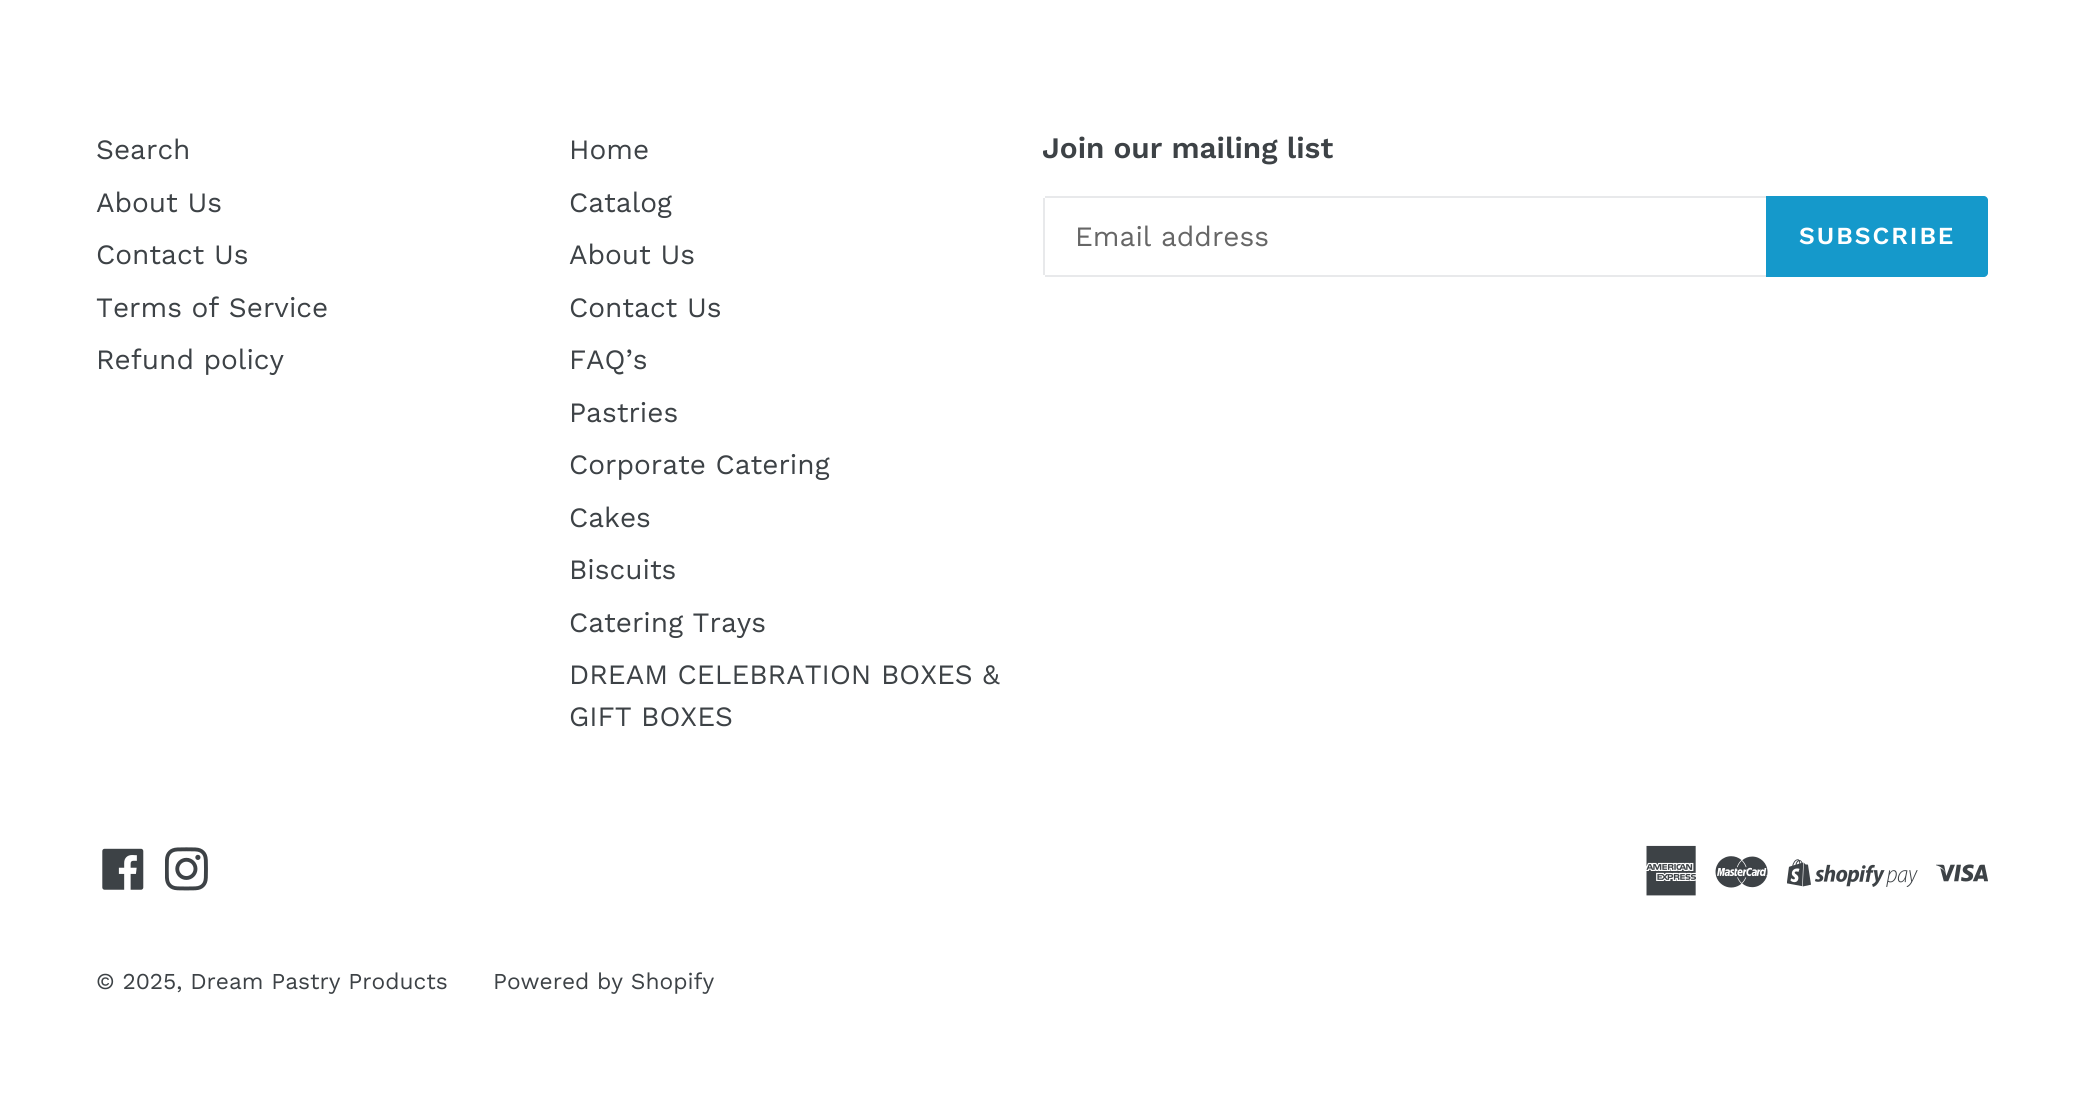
#include <cairo/cairo.h>
#include <math.h>
#include <stddef.h>

typedef struct { double x, y; const char *s; } line_t;
typedef struct { double x, y, w, h; unsigned color; } box_t;
static cairo_t *cr;

static void rgb(unsigned color)
{
	cairo_set_source_rgb(cr, (color >> 16) / 255.0, (color >> 8 & 255) / 255.0, (color & 255) / 255.0);
}

static void tracked(double x, double y, const char *s, double letter, double word)
{
	cairo_move_to(cr, x, y);
	while (*s) {
		char ch[5] = {0};
		int n = 0;
		do ch[n++] = *s++; while ((*s & 0xC0) == 0x80);
		cairo_show_text(cr, ch);
		cairo_rel_move_to(cr, letter + word * (*ch == ' '), 0);
	}
}

static void image(const char *path, double x, double y, double w, double h)
{
	cairo_surface_t *image = cairo_image_surface_create_from_png(path);
	cairo_save(cr);
	cairo_set_source_surface(cr, image, x, y);
	cairo_rectangle(cr, x, y, w, h);
	cairo_fill(cr);
	cairo_restore(cr);
	cairo_surface_destroy(image);
}

int main(void) {
	cairo_surface_t *surface = cairo_image_surface_create(CAIRO_FORMAT_RGB24, 2084, 1096);
	cr = cairo_create(surface);
	cairo_font_options_t *options = cairo_font_options_create();
	cairo_font_options_set_hint_metrics(options, CAIRO_HINT_METRICS_OFF);
	cairo_font_options_set_hint_style(options, CAIRO_HINT_STYLE_NONE);
	cairo_set_font_options(cr, options);
	cairo_set_miter_limit(cr, 4);
	rgb(0xffffff);
	cairo_paint(cr);
	{
		static const box_t items[] = {
			{1045, 196, 721, 2, 0xe8e9eb},
			{1045, 275, 721, 2, 0xe8e9eb},
			{1043, 198, 2, 77, 0xe8e9eb},
		};
		for (size_t i = 0; i < sizeof items / sizeof *items; i++) {
			rgb(items[i].color);
			cairo_rectangle(cr, items[i].x, items[i].y, items[i].w, items[i].h);
			cairo_fill(cr);
		}
	}
	rgb(0x1599cb);
	cairo_new_path(cr);
	cairo_move_to(cr, 1766, 196);
	cairo_line_to(cr, 1984, 196);
	cairo_curve_to(cr, 1986, 196, 1988, 198, 1988, 200);
	cairo_line_to(cr, 1988, 273);
	cairo_curve_to(cr, 1988, 275, 1986, 277, 1984, 277);
	cairo_line_to(cr, 1766, 277);
	cairo_close_path(cr);
	cairo_fill(cr);
	image("img/1.png", 102, 848, 42, 42);
	image("img/2.png", 165, 847, 43, 44);
	image("img/3.png", 1646, 845, 50, 51);
	image("img/4.png", 1715, 856, 53, 32);
	image("img/5.png", 1787, 859, 131, 28);
	image("img/6.png", 1936, 864, 52, 18);
	cairo_select_font_face(cr, "Work Sans", CAIRO_FONT_SLANT_NORMAL, CAIRO_FONT_WEIGHT_NORMAL);
	cairo_set_font_size(cr, 28);
	rgb(0x3d4246);
	{
		static const line_t items[] = {
			{96, 159, "Search"},
			{96, 212, "About Us"},
			{96, 264, "Contact Us"},
			{96, 317, "Terms of Service"},
			{96, 369, "Refund policy"},
			{569, 159, "Home"},
			{569, 212, "Catalog"},
			{569, 264, "About Us"},
			{569, 317, "Contact Us"},
			{569, 369, "FAQ’s"},
			{569, 422, "Pastries"},
			{569, 474, "Corporate Catering"},
			{569, 527, "Cakes"},
			{569, 579, "Biscuits"},
			{569, 632, "Catering Trays"},
			{569, 684, "DREAM CELEBRATION BOXES &"},
			{569, 726, "GIFT BOXES"},
		};
		for (size_t i = 0; i < sizeof items / sizeof *items; i++) {
			cairo_move_to(cr, items[i].x, items[i].y);
			cairo_show_text(cr, items[i].s);
		}
	}
	cairo_select_font_face(cr, "Work Sans SemiBold", CAIRO_FONT_SLANT_NORMAL, CAIRO_FONT_WEIGHT_NORMAL);
	cairo_set_font_size(cr, 29.75);
	cairo_move_to(cr, 1042, 158);
	cairo_show_text(cr, "Join our mailing list");
	cairo_select_font_face(cr, "Work Sans", CAIRO_FONT_SLANT_NORMAL, CAIRO_FONT_WEIGHT_NORMAL);
	cairo_set_font_size(cr, 28);
	rgb(0x666666);
	cairo_move_to(cr, 1075, 246);
	cairo_show_text(cr, "Email address");
	cairo_select_font_face(cr, "Work Sans SemiBold", CAIRO_FONT_SLANT_NORMAL, CAIRO_FONT_WEIGHT_NORMAL);
	cairo_set_font_size(cr, 24.5);
	rgb(0xffffff);
	tracked(1799, 244, "SUBSCRIBE", 2, 0);
	cairo_select_font_face(cr, "Work Sans", CAIRO_FONT_SLANT_NORMAL, CAIRO_FONT_WEIGHT_NORMAL);
	cairo_set_font_size(cr, 22.75);
	rgb(0x3d4246);
	cairo_move_to(cr, 96, 989);
	cairo_show_text(cr, "© 2025, Dream Pastry Products");
	cairo_move_to(cr, 493, 989);
	cairo_show_text(cr, "Powered by Shopify");
	cairo_surface_write_to_png(surface, "page.png");
	cairo_font_options_destroy(options);
	cairo_destroy(cr);
	cairo_surface_destroy(surface);
	return 0;
}
